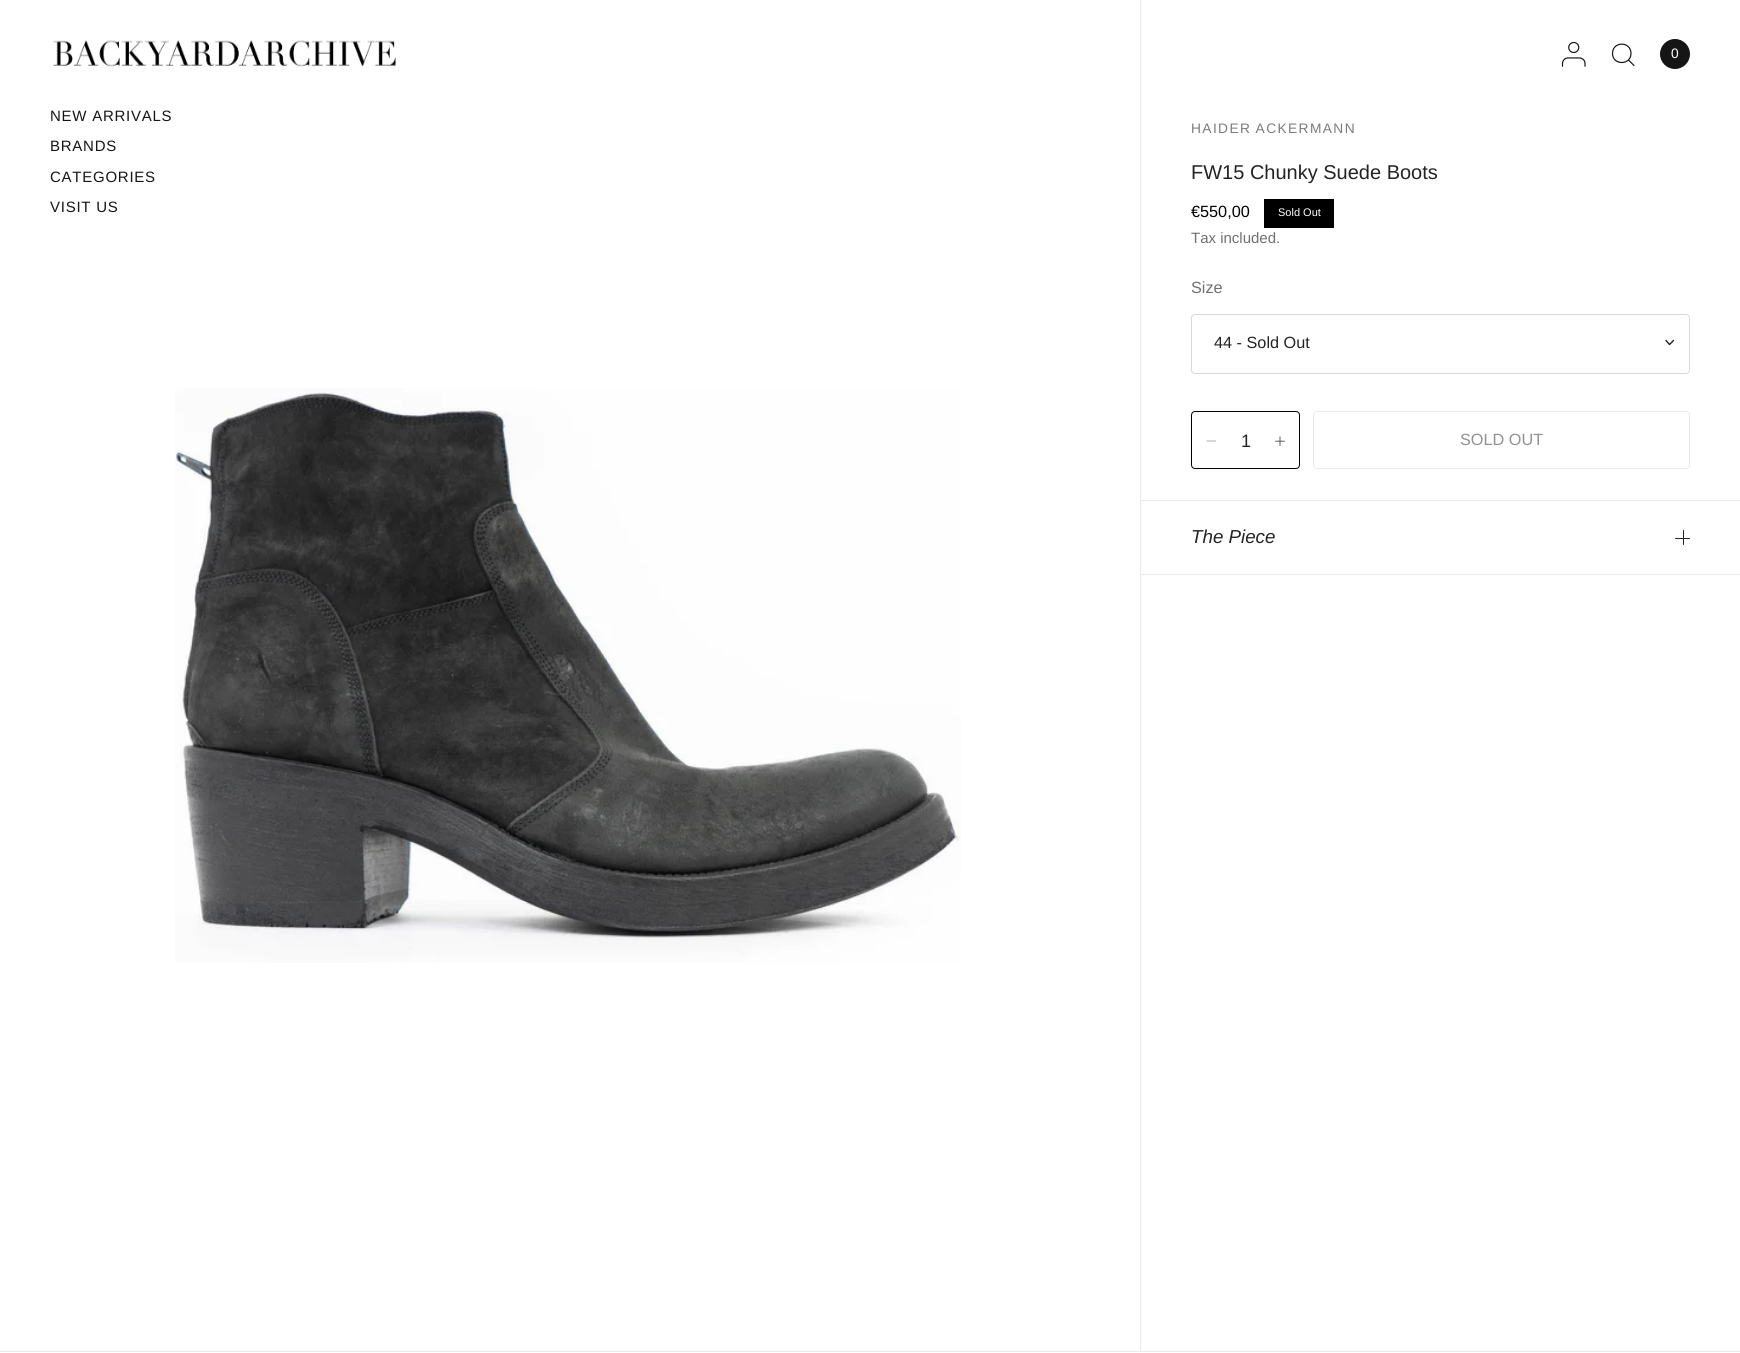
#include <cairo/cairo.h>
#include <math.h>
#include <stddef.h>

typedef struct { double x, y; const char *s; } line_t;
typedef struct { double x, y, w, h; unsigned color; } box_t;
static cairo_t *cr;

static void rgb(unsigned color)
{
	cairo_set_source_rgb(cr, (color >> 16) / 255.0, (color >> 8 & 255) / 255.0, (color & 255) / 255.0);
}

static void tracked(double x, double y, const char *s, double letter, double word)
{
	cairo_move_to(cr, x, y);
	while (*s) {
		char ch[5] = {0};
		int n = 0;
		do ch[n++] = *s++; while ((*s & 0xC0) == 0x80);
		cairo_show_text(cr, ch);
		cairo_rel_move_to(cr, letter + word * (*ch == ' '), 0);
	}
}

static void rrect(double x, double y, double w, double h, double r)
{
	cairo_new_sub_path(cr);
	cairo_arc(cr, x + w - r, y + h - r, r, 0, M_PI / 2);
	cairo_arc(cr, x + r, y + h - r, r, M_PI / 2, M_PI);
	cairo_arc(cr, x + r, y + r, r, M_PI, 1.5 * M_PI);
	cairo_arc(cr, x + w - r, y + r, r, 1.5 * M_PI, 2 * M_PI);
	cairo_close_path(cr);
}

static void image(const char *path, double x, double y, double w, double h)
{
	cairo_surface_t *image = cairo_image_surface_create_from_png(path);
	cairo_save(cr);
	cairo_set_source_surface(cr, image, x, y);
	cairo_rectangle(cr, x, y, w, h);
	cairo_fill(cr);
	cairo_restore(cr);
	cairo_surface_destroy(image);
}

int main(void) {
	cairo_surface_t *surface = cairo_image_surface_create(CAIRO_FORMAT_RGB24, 1740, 1353);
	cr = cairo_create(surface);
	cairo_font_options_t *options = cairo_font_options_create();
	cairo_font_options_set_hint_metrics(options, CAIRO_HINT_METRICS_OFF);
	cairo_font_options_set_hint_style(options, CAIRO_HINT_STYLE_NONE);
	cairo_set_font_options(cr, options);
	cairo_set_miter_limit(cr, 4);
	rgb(0xffffff);
	cairo_paint(cr);
	image("img/1.png", 1561, 41, 25, 26);
	cairo_new_path(cr);
	cairo_move_to(cr, 1628.5, 60);
	cairo_line_to(cr, 1634, 65.5);
	cairo_move_to(cr, 1631, 53.5);
	cairo_curve_to(cr, 1631, 65.5, 1612.5, 65.5, 1612.5, 53.5);
	cairo_curve_to(cr, 1612.5, 41, 1631, 41, 1631, 53.5);
	cairo_close_path(cr);
	rgb(0x151515);
	cairo_set_line_width(cr, 1.2);
	cairo_set_line_cap(cr, CAIRO_LINE_CAP_ROUND);
	cairo_set_line_join(cr, CAIRO_LINE_JOIN_ROUND);
	cairo_stroke(cr);
	cairo_arc(cr, 1675, 54, 15, 0, 2 * M_PI);
	cairo_fill(cr);
	image("img/2.png", 53, 40, 343, 27);
	{
		static const box_t items[] = {
			{0, 1351, 1740, 1, 0xeaeaea},
			{1140, 0, 1, 1351, 0xeaeaea},
			{1264, 199, 70, 29, 0x000000},
		};
		for (size_t i = 0; i < sizeof items / sizeof *items; i++) {
			rgb(items[i].color);
			cairo_rectangle(cr, items[i].x, items[i].y, items[i].w, items[i].h);
			cairo_fill(cr);
		}
	}
	rrect(1191.5, 314.5, 498, 59, 3.5);
	rgb(0xd9d9d9);
	cairo_set_line_width(cr, 1);
	cairo_set_line_cap(cr, CAIRO_LINE_CAP_BUTT);
	cairo_set_line_join(cr, CAIRO_LINE_JOIN_MITER);
	cairo_stroke(cr);
	cairo_new_path(cr);
	cairo_move_to(cr, 1673.5, 340.5);
	cairo_line_to(cr, 1669.5, 344.5);
	cairo_line_to(cr, 1666, 340.5);
	rgb(0x232323);
	cairo_set_line_width(cr, 1.4);
	cairo_set_line_cap(cr, CAIRO_LINE_CAP_ROUND);
	cairo_set_line_join(cr, CAIRO_LINE_JOIN_ROUND);
	cairo_stroke(cr);
	rrect(1191.5, 411.5, 108, 57, 3.5);
	rgb(0x000000);
	cairo_set_line_width(cr, 1);
	cairo_set_line_cap(cr, CAIRO_LINE_CAP_BUTT);
	cairo_set_line_join(cr, CAIRO_LINE_JOIN_MITER);
	cairo_stroke(cr);
	cairo_new_path(cr);
	cairo_move_to(cr, 1207, 441);
	cairo_line_to(cr, 1215.5, 441);
	rgb(0xbdbdbd);
	cairo_set_line_width(cr, 1.2);
	cairo_set_line_cap(cr, CAIRO_LINE_CAP_ROUND);
	cairo_set_line_join(cr, CAIRO_LINE_JOIN_ROUND);
	cairo_stroke(cr);
	image("img/3.png", 1275, 436, 10, 10);
	rrect(1313.5, 411.5, 376, 57, 3.5);
	rgb(0xeaeaea);
	cairo_set_line_width(cr, 1);
	cairo_set_line_cap(cr, CAIRO_LINE_CAP_BUTT);
	cairo_set_line_join(cr, CAIRO_LINE_JOIN_MITER);
	cairo_stroke(cr);
	cairo_rectangle(cr, 1141, 500, 599, 1);
	cairo_fill(cr);
	cairo_rectangle(cr, 1141, 574, 599, 1);
	cairo_fill(cr);
	rgb(0x232323);
	rrect(1683, 530, 1, 15, 0.5);
	cairo_fill(cr);
	rrect(1675, 538, 15, 1, 0.5);
	cairo_fill(cr);
	image("img/4.png", 175, 388, 786, 575);
	cairo_select_font_face(cr, "Liberation Sans", CAIRO_FONT_SLANT_NORMAL, CAIRO_FONT_WEIGHT_NORMAL);
	cairo_set_font_size(cr, 13.75);
	rgb(0xffffff);
	cairo_move_to(cr, 1671, 58);
	cairo_show_text(cr, "0");
	cairo_set_font_size(cr, 15);
	rgb(0x151515);
	{
		static const line_t items[] = {
			{50, 121, "NEW ARRIVALS"},
			{50, 151, "BRANDS"},
			{50, 182, "CATEGORIES"},
			{50, 212, "VISIT US"},
		};
		for (size_t i = 0; i < sizeof items / sizeof *items; i++) {
			tracked(items[i].x, items[i].y, items[i].s, 0.75, 0);
		}
	}
	cairo_set_font_size(cr, 13.75);
	rgb(0x7b7b7b);
	tracked(1191, 133, "HAIDER ACKERMANN", 1.4, -1);
	cairo_set_font_size(cr, 20);
	rgb(0x232323);
	cairo_move_to(cr, 1191, 179);
	cairo_show_text(cr, "FW15 Chunky Suede Boots");
	cairo_set_font_size(cr, 16.25);
	rgb(0x000000);
	cairo_move_to(cr, 1191, 217);
	cairo_show_text(cr, "€550,00");
	cairo_set_font_size(cr, 11);
	rgb(0xffffff);
	cairo_move_to(cr, 1278, 216);
	cairo_show_text(cr, "Sold Out");
	cairo_set_font_size(cr, 15);
	rgb(0x707070);
	cairo_move_to(cr, 1191, 243);
	cairo_show_text(cr, "Tax included.");
	cairo_set_font_size(cr, 16.25);
	cairo_move_to(cr, 1191, 293);
	cairo_show_text(cr, "Size");
	rgb(0x232323);
	cairo_move_to(cr, 1214, 348);
	cairo_show_text(cr, "44 - Sold Out");
	cairo_set_font_size(cr, 18);
	cairo_move_to(cr, 1241, 447);
	cairo_show_text(cr, "1");
	cairo_set_font_size(cr, 16.25);
	rgb(0x919191);
	cairo_move_to(cr, 1460, 445);
	cairo_show_text(cr, "SOLD OUT");
	cairo_select_font_face(cr, "Liberation Sans", CAIRO_FONT_SLANT_ITALIC, CAIRO_FONT_WEIGHT_NORMAL);
	cairo_set_font_size(cr, 18.75);
	rgb(0x232323);
	cairo_move_to(cr, 1191, 543);
	cairo_show_text(cr, "The Piece");
	cairo_surface_write_to_png(surface, "page.png");
	cairo_font_options_destroy(options);
	cairo_destroy(cr);
	cairo_surface_destroy(surface);
	return 0;
}
